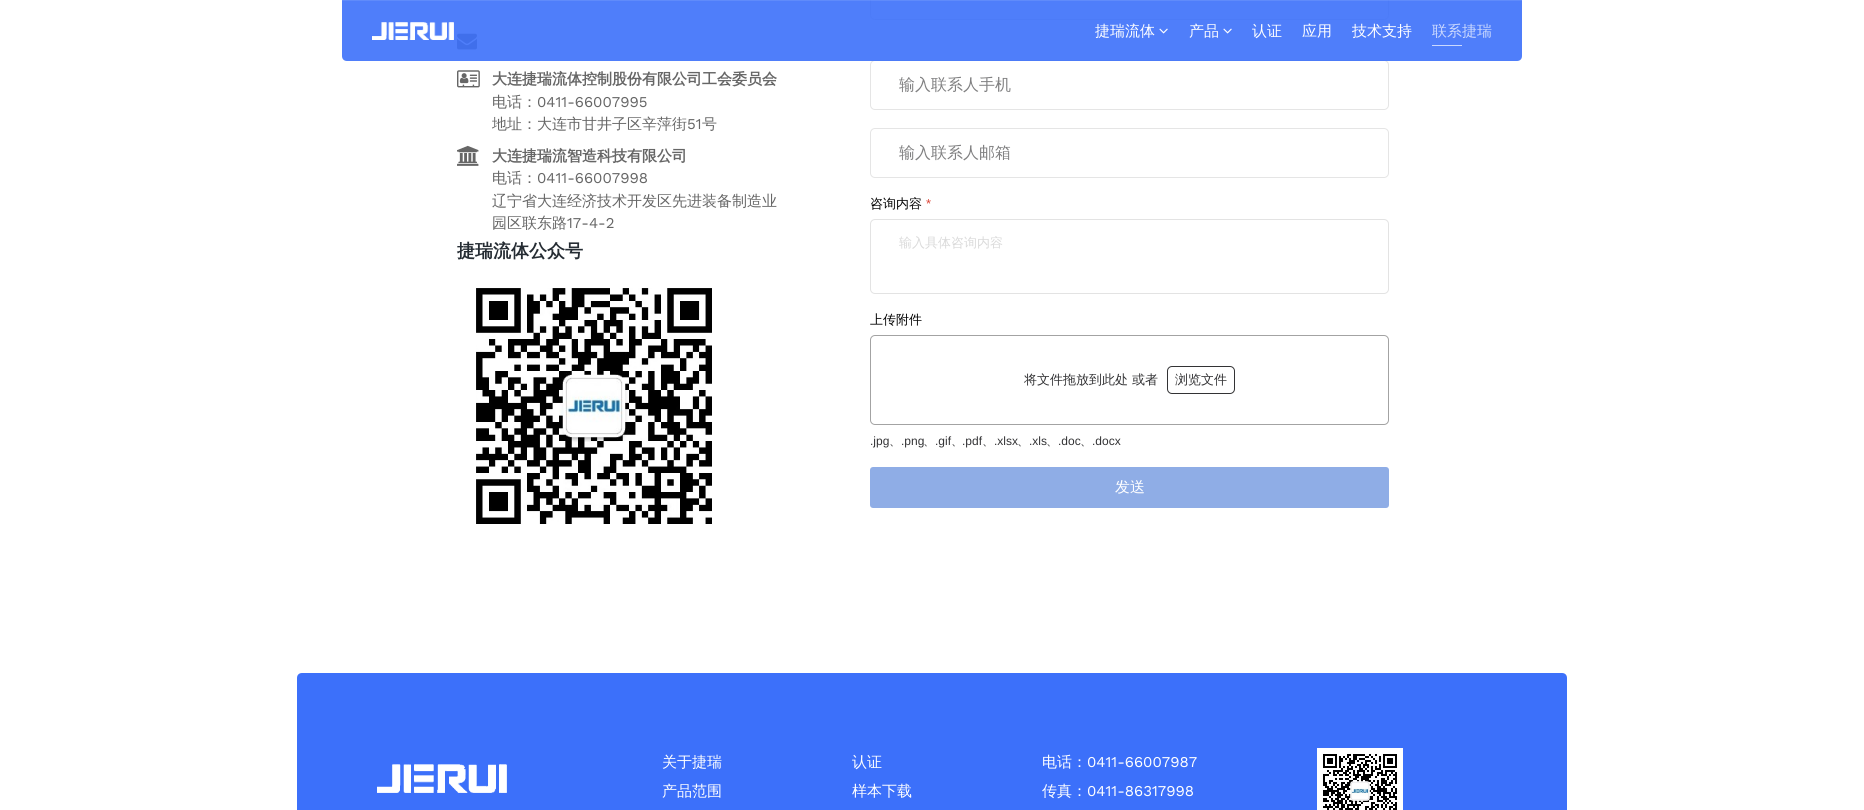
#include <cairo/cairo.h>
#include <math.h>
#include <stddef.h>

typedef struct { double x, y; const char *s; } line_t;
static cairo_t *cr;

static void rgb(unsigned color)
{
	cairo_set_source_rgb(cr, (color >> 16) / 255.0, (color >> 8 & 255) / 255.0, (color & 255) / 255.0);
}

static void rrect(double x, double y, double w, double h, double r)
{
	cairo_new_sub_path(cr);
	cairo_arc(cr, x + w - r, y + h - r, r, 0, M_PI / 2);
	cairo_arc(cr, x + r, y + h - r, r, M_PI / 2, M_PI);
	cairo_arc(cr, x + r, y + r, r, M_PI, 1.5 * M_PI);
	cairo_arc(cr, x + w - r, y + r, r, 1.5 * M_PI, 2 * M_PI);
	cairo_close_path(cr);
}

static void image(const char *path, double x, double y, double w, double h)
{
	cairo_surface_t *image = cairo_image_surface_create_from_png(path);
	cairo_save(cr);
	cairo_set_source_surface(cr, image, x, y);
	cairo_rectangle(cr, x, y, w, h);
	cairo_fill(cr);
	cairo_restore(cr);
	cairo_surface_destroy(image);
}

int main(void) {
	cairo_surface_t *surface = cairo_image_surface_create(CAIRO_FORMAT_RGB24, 1864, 810);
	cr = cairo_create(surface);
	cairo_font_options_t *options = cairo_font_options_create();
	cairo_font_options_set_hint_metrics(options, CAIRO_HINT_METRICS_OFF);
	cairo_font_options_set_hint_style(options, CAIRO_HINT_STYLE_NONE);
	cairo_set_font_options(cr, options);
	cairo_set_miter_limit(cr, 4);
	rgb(0xffffff);
	cairo_paint(cr);
	image("img/3.png", 457, 33, 20, 17);
	rrect(870.5, -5.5, 518, 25, 4.5);
	rgb(0xe5e5e5);
	cairo_set_line_width(cr, 1);
	cairo_stroke(cr);
	rrect(870.5, 60.5, 518, 49, 4.5);
	cairo_stroke(cr);
	cairo_set_source_rgba(cr, 0.235, 0.439, 0.98, 0.9);
	cairo_new_path(cr);
	cairo_move_to(cr, 342, 0);
	cairo_line_to(cr, 1522, 0);
	cairo_line_to(cr, 1522, 56);
	cairo_curve_to(cr, 1522, 59, 1520, 61, 1517, 61);
	cairo_line_to(cr, 347, 61);
	cairo_curve_to(cr, 344, 61, 342, 59, 342, 56);
	cairo_close_path(cr);
	cairo_fill(cr);
	cairo_set_source_rgba(cr, 1, 1, 1, 0.1);
	cairo_rectangle(cr, 342, 0, 1180, 1);
	cairo_fill(cr);
	image("img/1.png", 372, 22, 82, 18);
	image("img/2.png", 1159, 28, 9, 6);
	image("img/2.png", 1223, 28, 9, 6);
	rgb(0xcad8fe);
	cairo_rectangle(cr, 1432, 45, 30, 1);
	cairo_fill(cr);
	image("img/4.png", 457, 70, 23, 18);
	image("img/5.png", 457, 145, 22, 21);
	image("img/6.png", 476, 288, 236, 236);
	rrect(870.5, 128.5, 518, 49, 4.5);
	rgb(0xe5e5e5);
	cairo_stroke(cr);
	rrect(870.5, 219.5, 518, 74, 4.5);
	rgb(0xe3e3e3);
	cairo_stroke(cr);
	rrect(870.5, 335.5, 518, 89, 4.5);
	rgb(0xa3a3a3);
	cairo_stroke(cr);
	rrect(1167.5, 366.5, 67, 27, 4.5);
	rgb(0x333335);
	cairo_stroke(cr);
	rgb(0x8fade6);
	rrect(870, 467, 519, 41, 3);
	cairo_fill(cr);
	rgb(0x3c70fa);
	cairo_rectangle(cr, 377, 673, 1110, 137);
	cairo_fill(cr);
	cairo_new_path(cr);
	cairo_move_to(cr, 302, 673);
	cairo_line_to(cr, 377, 673);
	cairo_line_to(cr, 377, 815);
	cairo_line_to(cr, 297, 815);
	cairo_line_to(cr, 297, 678);
	cairo_curve_to(cr, 297, 675, 299, 673, 302, 673);
	cairo_close_path(cr);
	cairo_fill(cr);
	image("img/7.png", 377, 764, 130, 29);
	image("img/8.png", 1317, 748, 86, 62);
	cairo_new_path(cr);
	cairo_move_to(cr, 1487, 673);
	cairo_line_to(cr, 1562, 673);
	cairo_curve_to(cr, 1565, 673, 1567, 675, 1567, 678);
	cairo_line_to(cr, 1567, 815);
	cairo_line_to(cr, 1487, 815);
	cairo_close_path(cr);
	cairo_fill(cr);
	cairo_select_font_face(cr, "WenQuanYi Zen Hei Medium", CAIRO_FONT_SLANT_NORMAL, CAIRO_FONT_WEIGHT_NORMAL);
	cairo_set_font_size(cr, 15);
	rgb(0xffffff);
	{
		static const line_t items[] = {
			{1095, 36, "捷瑞流体"},
			{1189, 36, "产品"},
			{1252, 36, "认证"},
			{1302, 36, "应用"},
			{1352, 36, "技术支持"},
		};
		for (size_t i = 0; i < sizeof items / sizeof *items; i++) {
			cairo_move_to(cr, items[i].x, items[i].y);
			cairo_show_text(cr, items[i].s);
		}
	}
	rgb(0xcad8fe);
	cairo_move_to(cr, 1432, 36);
	cairo_show_text(cr, "联系捷瑞");
	cairo_select_font_face(cr, "WenQuanYi Zen Hei", CAIRO_FONT_SLANT_NORMAL, CAIRO_FONT_WEIGHT_BOLD);
	rgb(0x666666);
	cairo_move_to(cr, 492, 84);
	cairo_show_text(cr, "大连捷瑞流体控制股份有限公司工会委员会");
	cairo_select_font_face(cr, "WenQuanYi Zen Hei Medium", CAIRO_FONT_SLANT_NORMAL, CAIRO_FONT_WEIGHT_NORMAL);
	cairo_move_to(cr, 492, 107);
	cairo_show_text(cr, "电话：");
	cairo_select_font_face(cr, "Work Sans", CAIRO_FONT_SLANT_NORMAL, CAIRO_FONT_WEIGHT_NORMAL);
	cairo_move_to(cr, 537, 107);
	cairo_show_text(cr, "0411-66007995");
	cairo_select_font_face(cr, "WenQuanYi Zen Hei Medium", CAIRO_FONT_SLANT_NORMAL, CAIRO_FONT_WEIGHT_NORMAL);
	cairo_move_to(cr, 492, 129);
	cairo_show_text(cr, "地址：大连市甘井子区辛萍街");
	cairo_select_font_face(cr, "Work Sans", CAIRO_FONT_SLANT_NORMAL, CAIRO_FONT_WEIGHT_NORMAL);
	cairo_move_to(cr, 687, 129);
	cairo_show_text(cr, "51");
	cairo_select_font_face(cr, "WenQuanYi Zen Hei Medium", CAIRO_FONT_SLANT_NORMAL, CAIRO_FONT_WEIGHT_NORMAL);
	cairo_move_to(cr, 702, 129);
	cairo_show_text(cr, "号");
	cairo_select_font_face(cr, "WenQuanYi Zen Hei", CAIRO_FONT_SLANT_NORMAL, CAIRO_FONT_WEIGHT_BOLD);
	cairo_move_to(cr, 492, 161);
	cairo_show_text(cr, "大连捷瑞流智造科技有限公司");
	cairo_select_font_face(cr, "WenQuanYi Zen Hei Medium", CAIRO_FONT_SLANT_NORMAL, CAIRO_FONT_WEIGHT_NORMAL);
	cairo_move_to(cr, 492, 183);
	cairo_show_text(cr, "电话：");
	cairo_select_font_face(cr, "Work Sans", CAIRO_FONT_SLANT_NORMAL, CAIRO_FONT_WEIGHT_NORMAL);
	cairo_move_to(cr, 537, 183);
	cairo_show_text(cr, "0411-66007998");
	cairo_select_font_face(cr, "WenQuanYi Zen Hei Medium", CAIRO_FONT_SLANT_NORMAL, CAIRO_FONT_WEIGHT_NORMAL);
	cairo_move_to(cr, 492, 206);
	cairo_show_text(cr, "辽宁省大连经济技术开发区先进装备制造业");
	cairo_move_to(cr, 492, 228);
	cairo_show_text(cr, "园区联东路");
	cairo_select_font_face(cr, "Work Sans", CAIRO_FONT_SLANT_NORMAL, CAIRO_FONT_WEIGHT_NORMAL);
	cairo_move_to(cr, 567, 228);
	cairo_show_text(cr, "17-4-2");
	cairo_select_font_face(cr, "WenQuanYi Zen Hei", CAIRO_FONT_SLANT_NORMAL, CAIRO_FONT_WEIGHT_BOLD);
	cairo_set_font_size(cr, 18);
	rgb(0x252c33);
	cairo_move_to(cr, 457, 257);
	cairo_show_text(cr, "捷瑞流体公众号");
	cairo_select_font_face(cr, "WenQuanYi Zen Hei Medium", CAIRO_FONT_SLANT_NORMAL, CAIRO_FONT_WEIGHT_NORMAL);
	cairo_set_font_size(cr, 16);
	rgb(0x808081);
	cairo_move_to(cr, 899, 90);
	cairo_show_text(cr, "输入联系人手机");
	cairo_move_to(cr, 899, 158);
	cairo_show_text(cr, "输入联系人邮箱");
	cairo_set_font_size(cr, 13);
	rgb(0x030303);
	cairo_move_to(cr, 870, 208);
	cairo_show_text(cr, "咨询内容");
	cairo_select_font_face(cr, "Liberation Sans", CAIRO_FONT_SLANT_NORMAL, CAIRO_FONT_WEIGHT_NORMAL);
	rgb(0xdb4437);
	cairo_move_to(cr, 926, 208);
	cairo_show_text(cr, "*");
	cairo_select_font_face(cr, "WenQuanYi Zen Hei Medium", CAIRO_FONT_SLANT_NORMAL, CAIRO_FONT_WEIGHT_NORMAL);
	rgb(0xdadada);
	cairo_move_to(cr, 899, 247);
	cairo_show_text(cr, "输入具体咨询内容");
	rgb(0x030303);
	cairo_move_to(cr, 870, 324);
	cairo_show_text(cr, "上传附件");
	rgb(0x333335);
	cairo_move_to(cr, 1024, 384);
	cairo_show_text(cr, "将文件拖放到此处 或者");
	cairo_move_to(cr, 1175, 384);
	cairo_show_text(cr, "浏览文件");
	cairo_select_font_face(cr, "Liberation Sans", CAIRO_FONT_SLANT_NORMAL, CAIRO_FONT_WEIGHT_NORMAL);
	cairo_set_font_size(cr, 12);
	cairo_move_to(cr, 870, 445);
	cairo_show_text(cr, ".jpg");
	cairo_select_font_face(cr, "WenQuanYi Zen Hei Medium", CAIRO_FONT_SLANT_NORMAL, CAIRO_FONT_WEIGHT_NORMAL);
	cairo_move_to(cr, 889, 445);
	cairo_show_text(cr, "、");
	cairo_select_font_face(cr, "Liberation Sans", CAIRO_FONT_SLANT_NORMAL, CAIRO_FONT_WEIGHT_NORMAL);
	cairo_move_to(cr, 901, 445);
	cairo_show_text(cr, ".png");
	cairo_select_font_face(cr, "WenQuanYi Zen Hei Medium", CAIRO_FONT_SLANT_NORMAL, CAIRO_FONT_WEIGHT_NORMAL);
	cairo_move_to(cr, 923, 445);
	cairo_show_text(cr, "、");
	cairo_select_font_face(cr, "Liberation Sans", CAIRO_FONT_SLANT_NORMAL, CAIRO_FONT_WEIGHT_NORMAL);
	cairo_move_to(cr, 935, 445);
	cairo_show_text(cr, ".gif");
	cairo_select_font_face(cr, "WenQuanYi Zen Hei Medium", CAIRO_FONT_SLANT_NORMAL, CAIRO_FONT_WEIGHT_NORMAL);
	cairo_move_to(cr, 951, 445);
	cairo_show_text(cr, "、");
	cairo_select_font_face(cr, "Liberation Sans", CAIRO_FONT_SLANT_NORMAL, CAIRO_FONT_WEIGHT_NORMAL);
	cairo_move_to(cr, 962, 445);
	cairo_show_text(cr, ".pdf");
	cairo_select_font_face(cr, "WenQuanYi Zen Hei Medium", CAIRO_FONT_SLANT_NORMAL, CAIRO_FONT_WEIGHT_NORMAL);
	cairo_move_to(cr, 982, 445);
	cairo_show_text(cr, "、");
	cairo_select_font_face(cr, "Liberation Sans", CAIRO_FONT_SLANT_NORMAL, CAIRO_FONT_WEIGHT_NORMAL);
	cairo_move_to(cr, 994, 445);
	cairo_show_text(cr, ".xlsx");
	cairo_select_font_face(cr, "WenQuanYi Zen Hei Medium", CAIRO_FONT_SLANT_NORMAL, CAIRO_FONT_WEIGHT_NORMAL);
	cairo_move_to(cr, 1017, 445);
	cairo_show_text(cr, "、");
	cairo_select_font_face(cr, "Liberation Sans", CAIRO_FONT_SLANT_NORMAL, CAIRO_FONT_WEIGHT_NORMAL);
	cairo_move_to(cr, 1029, 445);
	cairo_show_text(cr, ".xls");
	cairo_select_font_face(cr, "WenQuanYi Zen Hei Medium", CAIRO_FONT_SLANT_NORMAL, CAIRO_FONT_WEIGHT_NORMAL);
	cairo_move_to(cr, 1046, 445);
	cairo_show_text(cr, "、");
	cairo_select_font_face(cr, "Liberation Sans", CAIRO_FONT_SLANT_NORMAL, CAIRO_FONT_WEIGHT_NORMAL);
	cairo_move_to(cr, 1058, 445);
	cairo_show_text(cr, ".doc");
	cairo_select_font_face(cr, "WenQuanYi Zen Hei Medium", CAIRO_FONT_SLANT_NORMAL, CAIRO_FONT_WEIGHT_NORMAL);
	cairo_move_to(cr, 1080, 445);
	cairo_show_text(cr, "、");
	cairo_select_font_face(cr, "Liberation Sans", CAIRO_FONT_SLANT_NORMAL, CAIRO_FONT_WEIGHT_NORMAL);
	cairo_move_to(cr, 1092, 445);
	cairo_show_text(cr, ".docx");
	cairo_select_font_face(cr, "WenQuanYi Zen Hei Medium", CAIRO_FONT_SLANT_NORMAL, CAIRO_FONT_WEIGHT_NORMAL);
	cairo_set_font_size(cr, 15);
	rgb(0xffffff);
	{
		static const line_t items[] = {
			{1115, 492, "发送"},
			{662, 767, "关于捷瑞"},
			{662, 796, "产品范围"},
			{852, 767, "认证"},
			{852, 796, "样本下载"},
			{1042, 767, "电话："},
		};
		for (size_t i = 0; i < sizeof items / sizeof *items; i++) {
			cairo_move_to(cr, items[i].x, items[i].y);
			cairo_show_text(cr, items[i].s);
		}
	}
	cairo_select_font_face(cr, "Work Sans", CAIRO_FONT_SLANT_NORMAL, CAIRO_FONT_WEIGHT_NORMAL);
	cairo_move_to(cr, 1087, 767);
	cairo_show_text(cr, "0411-66007987");
	cairo_select_font_face(cr, "WenQuanYi Zen Hei Medium", CAIRO_FONT_SLANT_NORMAL, CAIRO_FONT_WEIGHT_NORMAL);
	cairo_move_to(cr, 1042, 796);
	cairo_show_text(cr, "传真：");
	cairo_select_font_face(cr, "Work Sans", CAIRO_FONT_SLANT_NORMAL, CAIRO_FONT_WEIGHT_NORMAL);
	cairo_move_to(cr, 1087, 796);
	cairo_show_text(cr, "0411-86317998");
	cairo_surface_write_to_png(surface, "page.png");
	cairo_font_options_destroy(options);
	cairo_destroy(cr);
	cairo_surface_destroy(surface);
	return 0;
}
